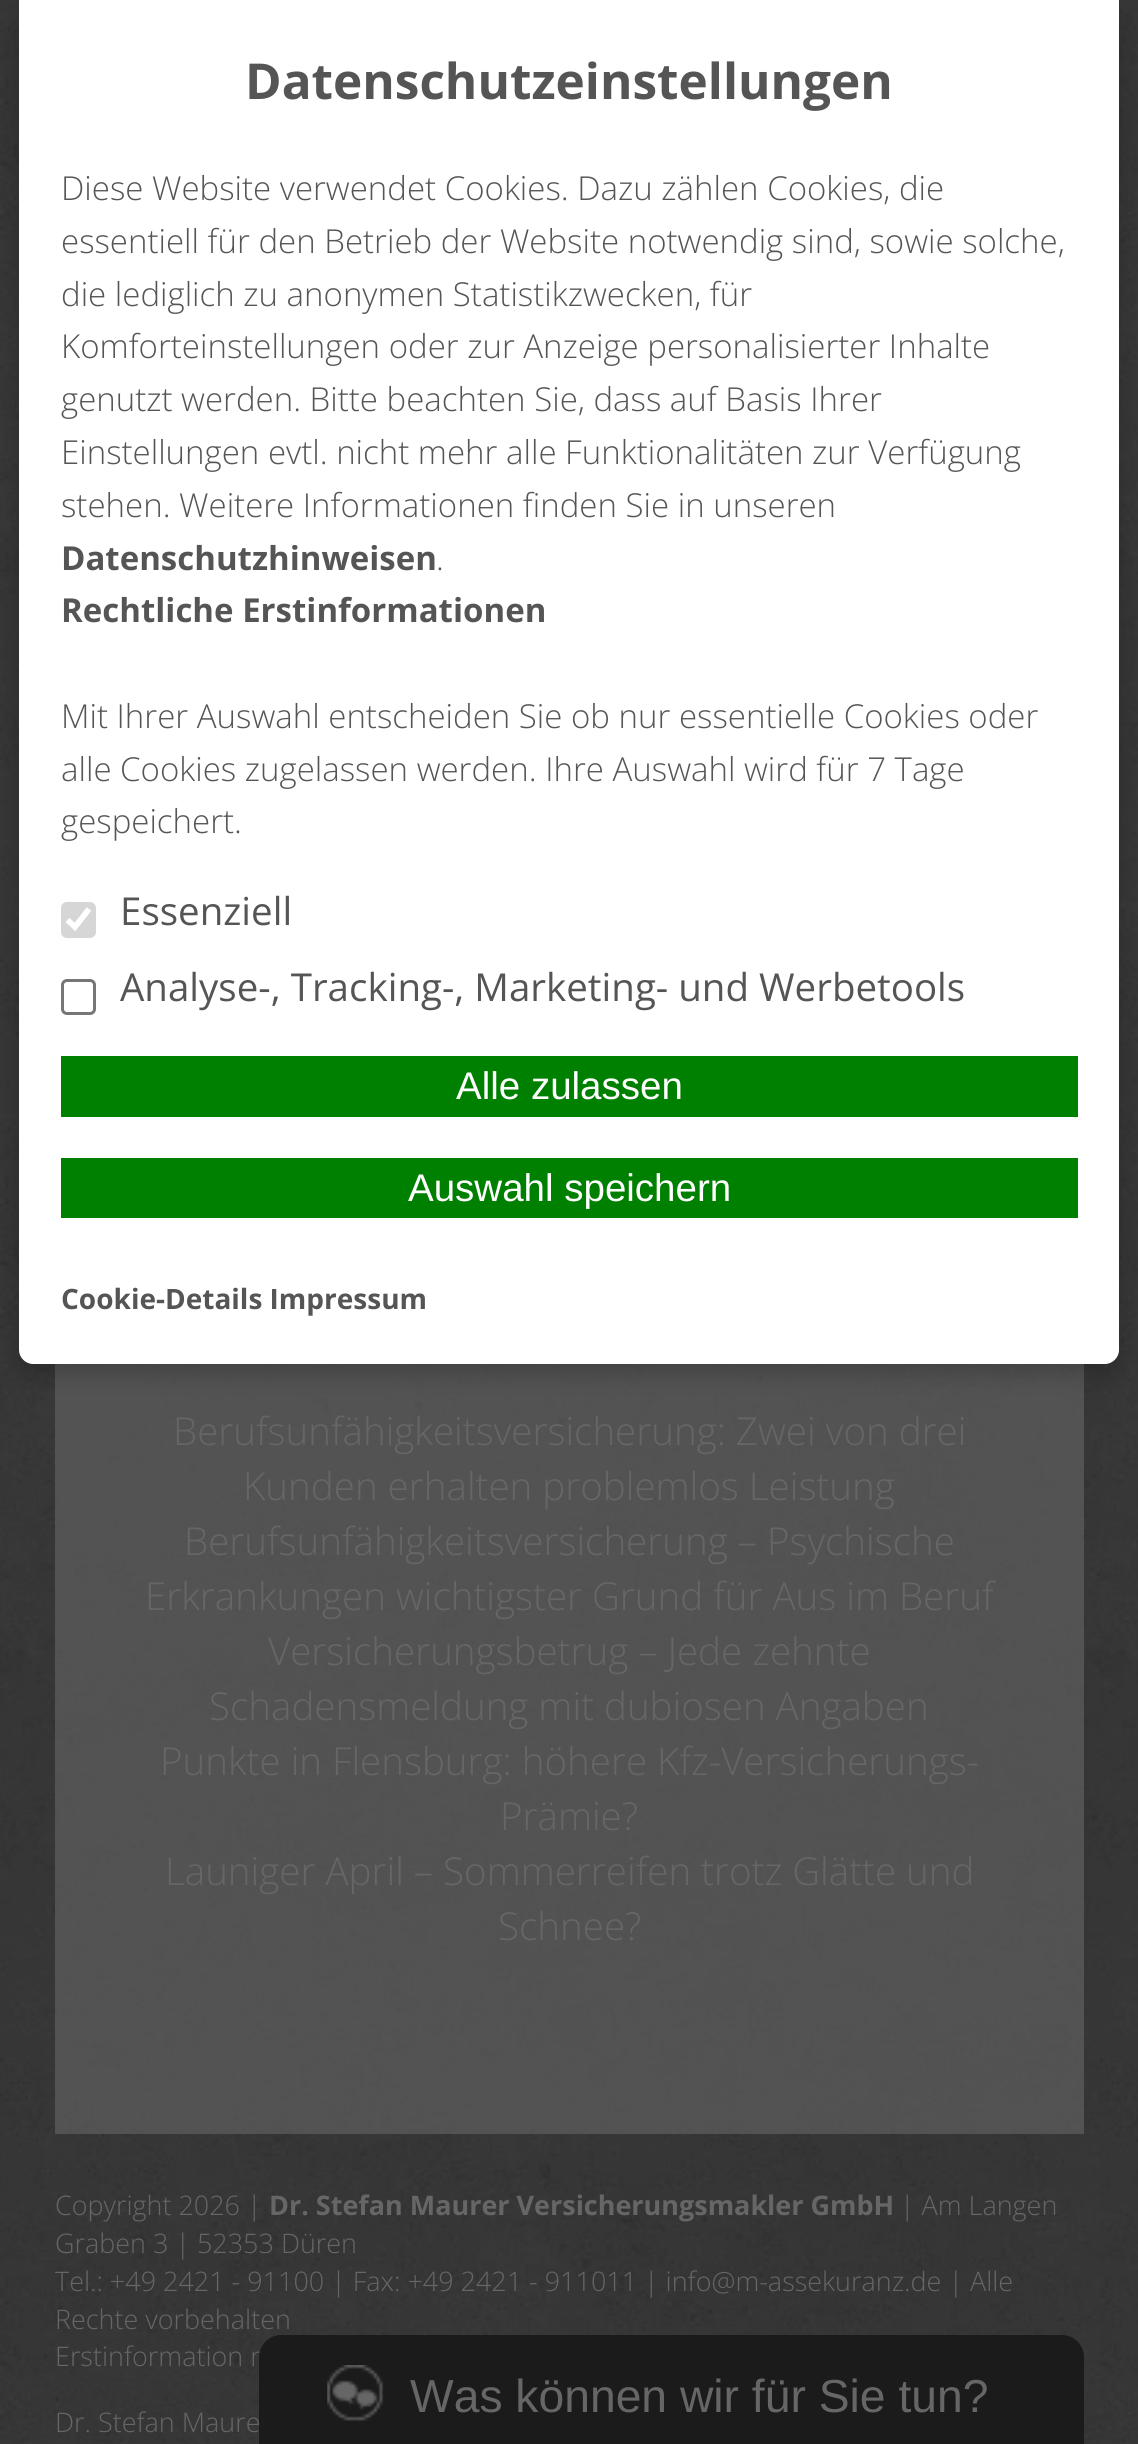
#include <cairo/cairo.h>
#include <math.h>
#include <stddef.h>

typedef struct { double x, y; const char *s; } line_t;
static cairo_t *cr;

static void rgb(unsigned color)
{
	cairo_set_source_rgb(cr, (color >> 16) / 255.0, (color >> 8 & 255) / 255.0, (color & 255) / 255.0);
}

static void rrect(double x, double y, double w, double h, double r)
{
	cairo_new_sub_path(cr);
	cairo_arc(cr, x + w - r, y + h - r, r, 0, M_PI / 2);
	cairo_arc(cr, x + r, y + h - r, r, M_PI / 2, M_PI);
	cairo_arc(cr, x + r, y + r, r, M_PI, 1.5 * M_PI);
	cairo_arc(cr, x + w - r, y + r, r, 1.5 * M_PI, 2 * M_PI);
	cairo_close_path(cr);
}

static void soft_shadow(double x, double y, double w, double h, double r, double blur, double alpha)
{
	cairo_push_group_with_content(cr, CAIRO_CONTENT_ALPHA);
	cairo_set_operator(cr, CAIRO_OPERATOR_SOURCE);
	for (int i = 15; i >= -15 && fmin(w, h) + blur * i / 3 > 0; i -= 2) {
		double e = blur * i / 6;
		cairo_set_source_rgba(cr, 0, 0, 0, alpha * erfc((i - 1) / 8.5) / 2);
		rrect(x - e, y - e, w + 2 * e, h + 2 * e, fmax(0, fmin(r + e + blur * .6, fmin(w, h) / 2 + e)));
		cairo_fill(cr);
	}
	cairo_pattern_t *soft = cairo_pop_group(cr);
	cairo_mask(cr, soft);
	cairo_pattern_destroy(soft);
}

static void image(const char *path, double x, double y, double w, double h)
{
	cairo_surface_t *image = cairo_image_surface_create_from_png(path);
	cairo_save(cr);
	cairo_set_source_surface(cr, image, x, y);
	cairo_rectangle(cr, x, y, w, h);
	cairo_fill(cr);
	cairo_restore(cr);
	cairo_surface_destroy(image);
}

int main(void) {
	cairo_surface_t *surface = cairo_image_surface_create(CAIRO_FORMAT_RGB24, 1138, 2444);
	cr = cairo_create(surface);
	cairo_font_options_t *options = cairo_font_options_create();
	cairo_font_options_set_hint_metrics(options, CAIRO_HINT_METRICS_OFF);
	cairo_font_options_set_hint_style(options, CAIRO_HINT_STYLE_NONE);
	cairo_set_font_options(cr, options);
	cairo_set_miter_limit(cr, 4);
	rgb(0xffffff);
	cairo_paint(cr);
	image("img/1.png", 0, 0, 1138, 2444);
	cairo_set_source_rgba(cr, 0.4, 0.4, 0.4, 0.6);
	cairo_rectangle(cr, 55, 1364, 1029, 770);
	cairo_fill(cr);
	rgb(0x000000);
	soft_shadow(19, 11, 1100, 1364, 14, 11, 0.2);
	rgb(0xffffff);
	cairo_new_path(cr);
	cairo_move_to(cr, 19, 0);
	cairo_line_to(cr, 1119, 0);
	cairo_line_to(cr, 1119, 1350);
	cairo_curve_to(cr, 1119, 1357.5, 1112.5, 1364, 1105, 1364);
	cairo_line_to(cr, 33, 1364);
	cairo_curve_to(cr, 25.5, 1364, 19, 1357.5, 19, 1350);
	cairo_close_path(cr);
	cairo_fill(cr);
	rgb(0xd6d6d6);
	rrect(61, 902, 35, 36, 6);
	cairo_fill(cr);
	cairo_new_path(cr);
	cairo_move_to(cr, 67.5, 920);
	cairo_line_to(cr, 75, 927);
	cairo_line_to(cr, 89, 909);
	rgb(0xffffff);
	cairo_set_line_width(cr, 5.7);
	cairo_stroke(cr);
	rrect(62.5, 980.5, 32, 33, 4.5);
	rgb(0x767676);
	cairo_set_line_width(cr, 3);
	cairo_stroke(cr);
	rgb(0x008000);
	cairo_rectangle(cr, 61, 1056, 1017, 61);
	cairo_fill(cr);
	cairo_rectangle(cr, 61, 1158, 1017, 60);
	cairo_fill(cr);
	cairo_select_font_face(cr, "Open Sans", CAIRO_FONT_SLANT_NORMAL, CAIRO_FONT_WEIGHT_BOLD);
	cairo_set_font_size(cr, 49.5);
	rgb(0x555555);
	cairo_move_to(cr, 245, 99);
	cairo_show_text(cr, "Datenschutzeinstellungen");
	cairo_select_font_face(cr, "Open Sans Light", CAIRO_FONT_SLANT_NORMAL, CAIRO_FONT_WEIGHT_NORMAL);
	cairo_set_font_size(cr, 33);
	{
		static const line_t items[] = {
			{61, 200, "Diese Website verwendet Cookies. Dazu zählen Cookies, die"},
			{61, 253, "essentiell für den Betrieb der Website notwendig sind, sowie solche,"},
			{61, 306, "die lediglich zu anonymen Statistikzwecken, für"},
			{61, 358, "Komforteinstellungen oder zur Anzeige personalisierter Inhalte"},
			{61, 411, "genutzt werden. Bitte beachten Sie, dass auf Basis Ihrer"},
			{61, 464, "Einstellungen evtl. nicht mehr alle Funktionalitäten zur Verfügung"},
			{61, 517, "stehen. Weitere Informationen finden Sie in unseren"},
		};
		for (size_t i = 0; i < sizeof items / sizeof *items; i++) {
			cairo_move_to(cr, items[i].x, items[i].y);
			cairo_show_text(cr, items[i].s);
		}
	}
	cairo_select_font_face(cr, "Open Sans", CAIRO_FONT_SLANT_NORMAL, CAIRO_FONT_WEIGHT_BOLD);
	cairo_move_to(cr, 61, 570);
	cairo_show_text(cr, "Datenschutzhinweisen");
	cairo_select_font_face(cr, "Open Sans Light", CAIRO_FONT_SLANT_NORMAL, CAIRO_FONT_WEIGHT_NORMAL);
	cairo_move_to(cr, 436, 570);
	cairo_show_text(cr, ".");
	cairo_select_font_face(cr, "Open Sans", CAIRO_FONT_SLANT_NORMAL, CAIRO_FONT_WEIGHT_BOLD);
	cairo_move_to(cr, 61, 622);
	cairo_show_text(cr, "Rechtliche Erstinformationen");
	cairo_select_font_face(cr, "Open Sans Light", CAIRO_FONT_SLANT_NORMAL, CAIRO_FONT_WEIGHT_NORMAL);
	{
		static const line_t items[] = {
			{61, 728, "Mit Ihrer Auswahl entscheiden Sie ob nur essentielle Cookies oder"},
			{61, 781, "alle Cookies zugelassen werden. Ihre Auswahl wird für 7 Tage"},
			{61, 833, "gespeichert."},
		};
		for (size_t i = 0; i < sizeof items / sizeof *items; i++) {
			cairo_move_to(cr, items[i].x, items[i].y);
			cairo_show_text(cr, items[i].s);
		}
	}
	cairo_select_font_face(cr, "Open Sans", CAIRO_FONT_SLANT_NORMAL, CAIRO_FONT_WEIGHT_NORMAL);
	cairo_set_font_size(cr, 38.5);
	cairo_move_to(cr, 120, 925);
	cairo_show_text(cr, "Essenziell");
	cairo_move_to(cr, 120, 1001);
	cairo_show_text(cr, "Analyse-, Tracking-, Marketing- und Werbetools");
	cairo_select_font_face(cr, "Liberation Sans", CAIRO_FONT_SLANT_NORMAL, CAIRO_FONT_WEIGHT_NORMAL);
	rgb(0xffffff);
	cairo_move_to(cr, 456, 1099);
	cairo_show_text(cr, "Alle zulassen");
	cairo_move_to(cr, 408, 1201);
	cairo_show_text(cr, "Auswahl speichern");
	cairo_select_font_face(cr, "Open Sans", CAIRO_FONT_SLANT_NORMAL, CAIRO_FONT_WEIGHT_BOLD);
	cairo_set_font_size(cr, 28);
	rgb(0x555555);
	cairo_move_to(cr, 61, 1309);
	cairo_show_text(cr, "Cookie-Details Impressum");
	cairo_select_font_face(cr, "Open Sans Light", CAIRO_FONT_SLANT_NORMAL, CAIRO_FONT_WEIGHT_NORMAL);
	cairo_set_font_size(cr, 38.5);
	rgb(0x666666);
	{
		static const line_t items[] = {
			{173, 1445, "Berufsunfähigkeitsversicherung: Zwei von drei"},
			{243, 1500, "Kunden erhalten problemlos Leistung"},
			{184, 1555, "Berufsunfähigkeitsversicherung – Psychische"},
			{145, 1610, "Erkrankungen wichtigster Grund für Aus im Beruf"},
			{268, 1665, "Versicherungsbetrug – Jede zehnte"},
			{209, 1720, "Schadensmeldung mit dubiosen Angaben"},
			{160, 1775, "Punkte in Flensburg: höhere Kfz-Versicherungs-"},
			{500, 1830, "Prämie?"},
			{165, 1885, "Launiger April – Sommerreifen trotz Glätte und"},
			{498, 1940, "Schnee?"},
		};
		for (size_t i = 0; i < sizeof items / sizeof *items; i++) {
			cairo_move_to(cr, items[i].x, items[i].y);
			cairo_show_text(cr, items[i].s);
		}
	}
	cairo_set_font_size(cr, 26.95);
	cairo_move_to(cr, 55, 2215);
	cairo_show_text(cr, "Copyright 2026 |");
	cairo_select_font_face(cr, "Open Sans", CAIRO_FONT_SLANT_NORMAL, CAIRO_FONT_WEIGHT_BOLD);
	cairo_move_to(cr, 269, 2215);
	cairo_show_text(cr, "Dr. Stefan Maurer Versicherungsmakler GmbH");
	cairo_select_font_face(cr, "Open Sans Light", CAIRO_FONT_SLANT_NORMAL, CAIRO_FONT_WEIGHT_NORMAL);
	{
		static const line_t items[] = {
			{900, 2215, "| Am Langen"},
			{55, 2253, "Graben 3 | 52353 Düren"},
			{55, 2291, "Tel.: +49 2421 - 91100 | Fax: +49 2421 - 911011 | info@m-assekuranz.de | Alle"},
			{55, 2329, "Rechte vorbehalten"},
			{55, 2366, "Erstinformation n"},
			{55, 2432, "Dr. Stefan Maure"},
		};
		for (size_t i = 0; i < sizeof items / sizeof *items; i++) {
			cairo_move_to(cr, items[i].x, items[i].y);
			cairo_show_text(cr, items[i].s);
		}
	}
	rgb(0x1b1b1b);
	cairo_new_path(cr);
	cairo_move_to(cr, 281, 2335);
	cairo_line_to(cr, 1062, 2335);
	cairo_curve_to(cr, 1074, 2335, 1084, 2345, 1084, 2357);
	cairo_line_to(cr, 1084, 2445);
	cairo_line_to(cr, 259, 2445);
	cairo_line_to(cr, 259, 2357);
	cairo_curve_to(cr, 259, 2345, 269, 2335, 281, 2335);
	cairo_close_path(cr);
	cairo_fill(cr);
	image("img/2.png", 327, 2365, 57, 56);
	cairo_select_font_face(cr, "Liberation Sans", CAIRO_FONT_SLANT_NORMAL, CAIRO_FONT_WEIGHT_NORMAL);
	cairo_set_font_size(cr, 46.25);
	rgb(0x666666);
	cairo_move_to(cr, 410, 2412);
	cairo_show_text(cr, "Was können wir für Sie tun?");
	cairo_surface_write_to_png(surface, "page.png");
	cairo_font_options_destroy(options);
	cairo_destroy(cr);
	cairo_surface_destroy(surface);
	return 0;
}
